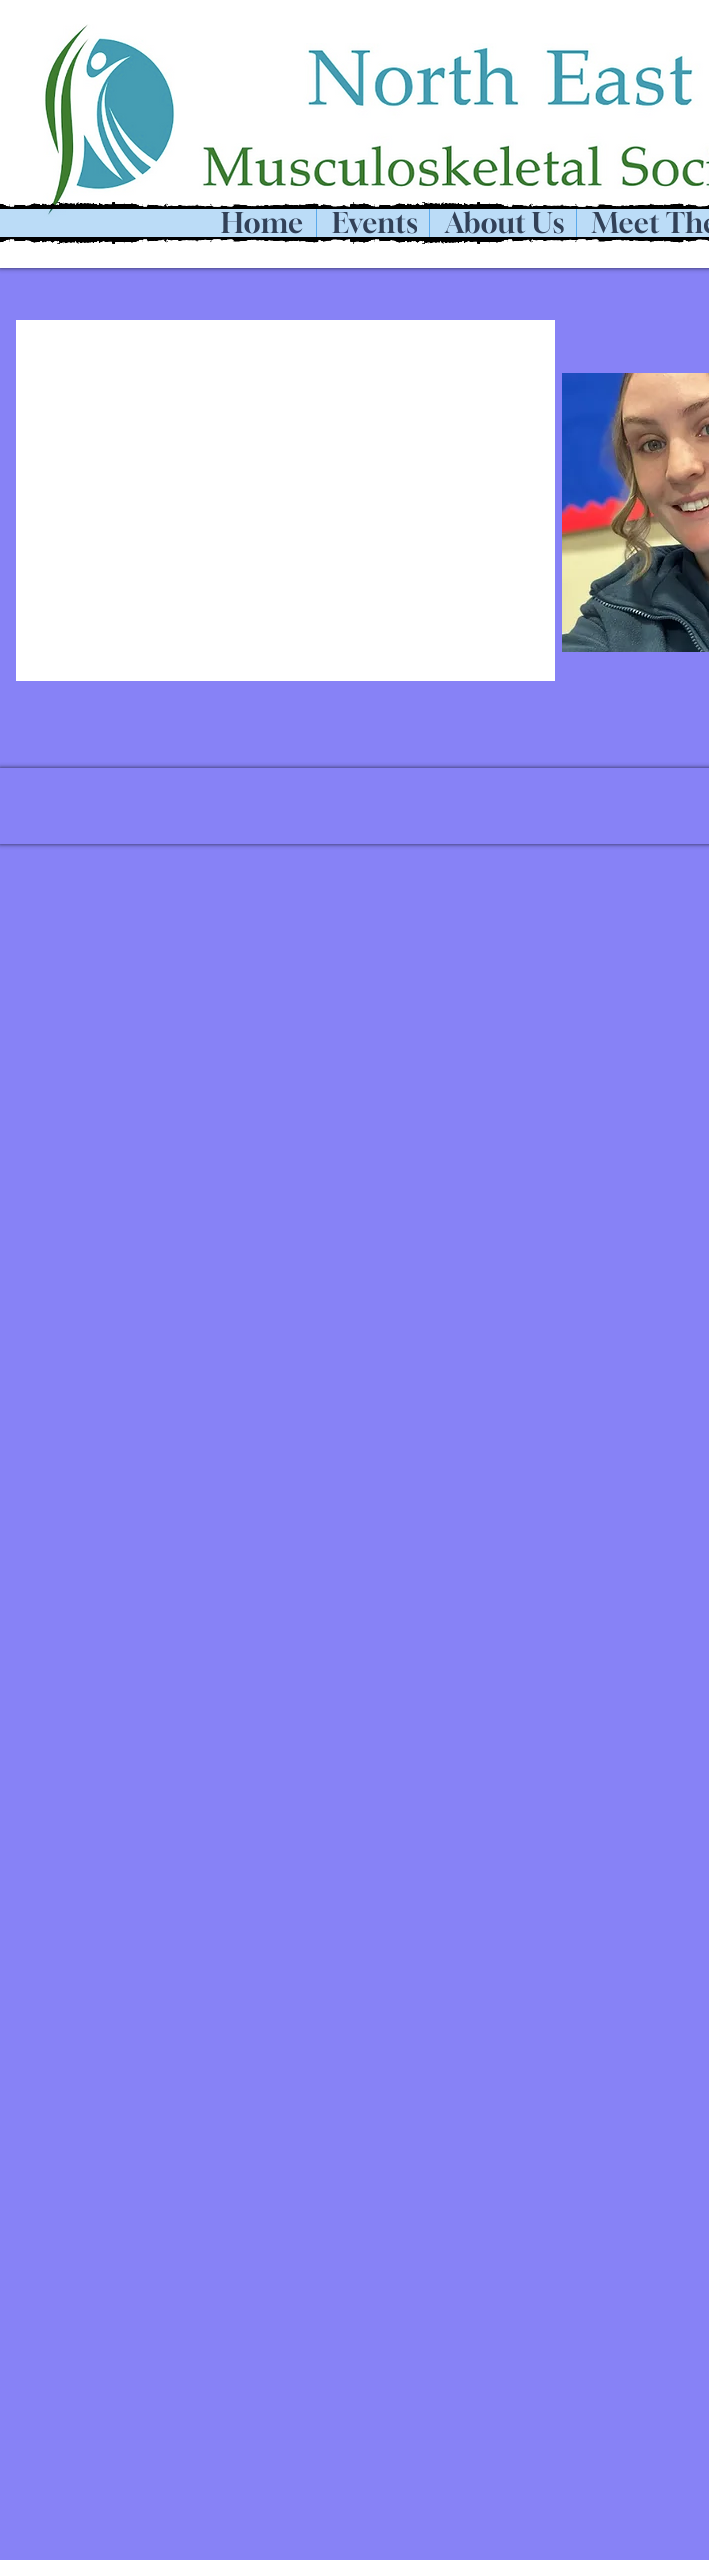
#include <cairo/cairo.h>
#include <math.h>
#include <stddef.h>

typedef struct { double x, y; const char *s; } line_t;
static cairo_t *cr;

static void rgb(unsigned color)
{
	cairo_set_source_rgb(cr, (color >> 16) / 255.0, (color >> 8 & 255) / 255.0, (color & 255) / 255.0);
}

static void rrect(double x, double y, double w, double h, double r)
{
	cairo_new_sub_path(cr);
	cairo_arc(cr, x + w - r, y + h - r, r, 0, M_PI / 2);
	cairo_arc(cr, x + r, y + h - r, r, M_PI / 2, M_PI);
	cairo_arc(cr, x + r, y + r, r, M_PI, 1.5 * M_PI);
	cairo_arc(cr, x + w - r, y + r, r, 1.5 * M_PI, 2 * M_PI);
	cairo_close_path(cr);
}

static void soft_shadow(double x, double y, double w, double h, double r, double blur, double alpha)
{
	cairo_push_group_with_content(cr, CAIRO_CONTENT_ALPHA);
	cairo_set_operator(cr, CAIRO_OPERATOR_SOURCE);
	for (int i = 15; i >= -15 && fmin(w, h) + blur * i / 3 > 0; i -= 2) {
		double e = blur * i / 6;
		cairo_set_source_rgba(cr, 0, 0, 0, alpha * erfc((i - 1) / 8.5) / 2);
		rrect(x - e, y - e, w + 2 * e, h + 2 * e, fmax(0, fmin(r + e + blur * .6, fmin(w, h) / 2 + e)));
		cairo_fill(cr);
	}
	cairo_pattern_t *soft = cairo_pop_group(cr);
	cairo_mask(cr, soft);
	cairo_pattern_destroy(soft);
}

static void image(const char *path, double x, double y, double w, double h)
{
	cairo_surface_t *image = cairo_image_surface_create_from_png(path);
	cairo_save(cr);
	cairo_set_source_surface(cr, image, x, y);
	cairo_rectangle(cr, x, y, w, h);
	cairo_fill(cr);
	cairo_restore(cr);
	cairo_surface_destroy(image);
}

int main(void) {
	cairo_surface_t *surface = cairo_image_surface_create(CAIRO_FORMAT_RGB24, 709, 2560);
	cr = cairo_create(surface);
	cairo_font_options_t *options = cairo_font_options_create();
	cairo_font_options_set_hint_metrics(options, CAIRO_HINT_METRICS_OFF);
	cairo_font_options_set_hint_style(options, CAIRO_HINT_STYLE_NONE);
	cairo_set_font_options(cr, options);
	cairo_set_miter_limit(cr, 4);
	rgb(0x8782f6);
	cairo_paint(cr);
	rgb(0x000000);
	soft_shadow(0, 0, 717, 268, 0, 2.5, 0.7);
	rgb(0xffffff);
	cairo_rectangle(cr, 0, 0, 709, 268);
	cairo_fill(cr);
	image("img/1.png", 42, 24, 139, 193);
	image("img/2.png", 175, 43, 534, 146);
	image("img/3.png", 0, 202, 709, 7);
	cairo_set_source_rgba(cr, 0.239, 0.608, 0.914, 0.35);
	cairo_rectangle(cr, 0, 209, 709, 28);
	cairo_fill(cr);
	rgb(0x5aaaec);
	cairo_rectangle(cr, 316, 209, 1, 28);
	cairo_fill(cr);
	cairo_rectangle(cr, 429, 209, 1, 28);
	cairo_fill(cr);
	cairo_rectangle(cr, 576, 209, 1, 28);
	cairo_fill(cr);
	image("img/4.png", 0, 237, 709, 7);
	rgb(0xffffff);
	cairo_rectangle(cr, 16, 320, 539, 361);
	cairo_fill(cr);
	image("img/5.png", 562, 373, 147, 279);
	cairo_save(cr);
	cairo_set_fill_rule(cr, CAIRO_FILL_RULE_EVEN_ODD);
	cairo_new_path(cr);
	cairo_move_to(cr, 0, 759);
	cairo_line_to(cr, 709, 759);
	cairo_line_to(cr, 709, 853);
	cairo_line_to(cr, 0, 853);
	cairo_close_path(cr);
	cairo_move_to(cr, 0, 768);
	cairo_line_to(cr, 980, 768);
	cairo_line_to(cr, 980, 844);
	cairo_line_to(cr, 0, 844);
	cairo_close_path(cr);
	cairo_clip(cr);
	rgb(0x000000);
	soft_shadow(0, 768, 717, 76, 0, 2.5, 0.7);
	cairo_restore(cr);
	cairo_select_font_face(cr, "Gloock", CAIRO_FONT_SLANT_NORMAL, CAIRO_FONT_WEIGHT_NORMAL);
	cairo_set_font_size(cr, 28);
	rgb(0x324158);
	{
		static const line_t items[] = {
			{221, 233, "Home"},
			{332, 233, "Events"},
			{445, 233, "About Us"},
			{592, 233, "Meet The"},
		};
		for (size_t i = 0; i < sizeof items / sizeof *items; i++) {
			cairo_move_to(cr, items[i].x, items[i].y);
			cairo_show_text(cr, items[i].s);
		}
	}
	cairo_surface_write_to_png(surface, "page.png");
	cairo_font_options_destroy(options);
	cairo_destroy(cr);
	cairo_surface_destroy(surface);
	return 0;
}
